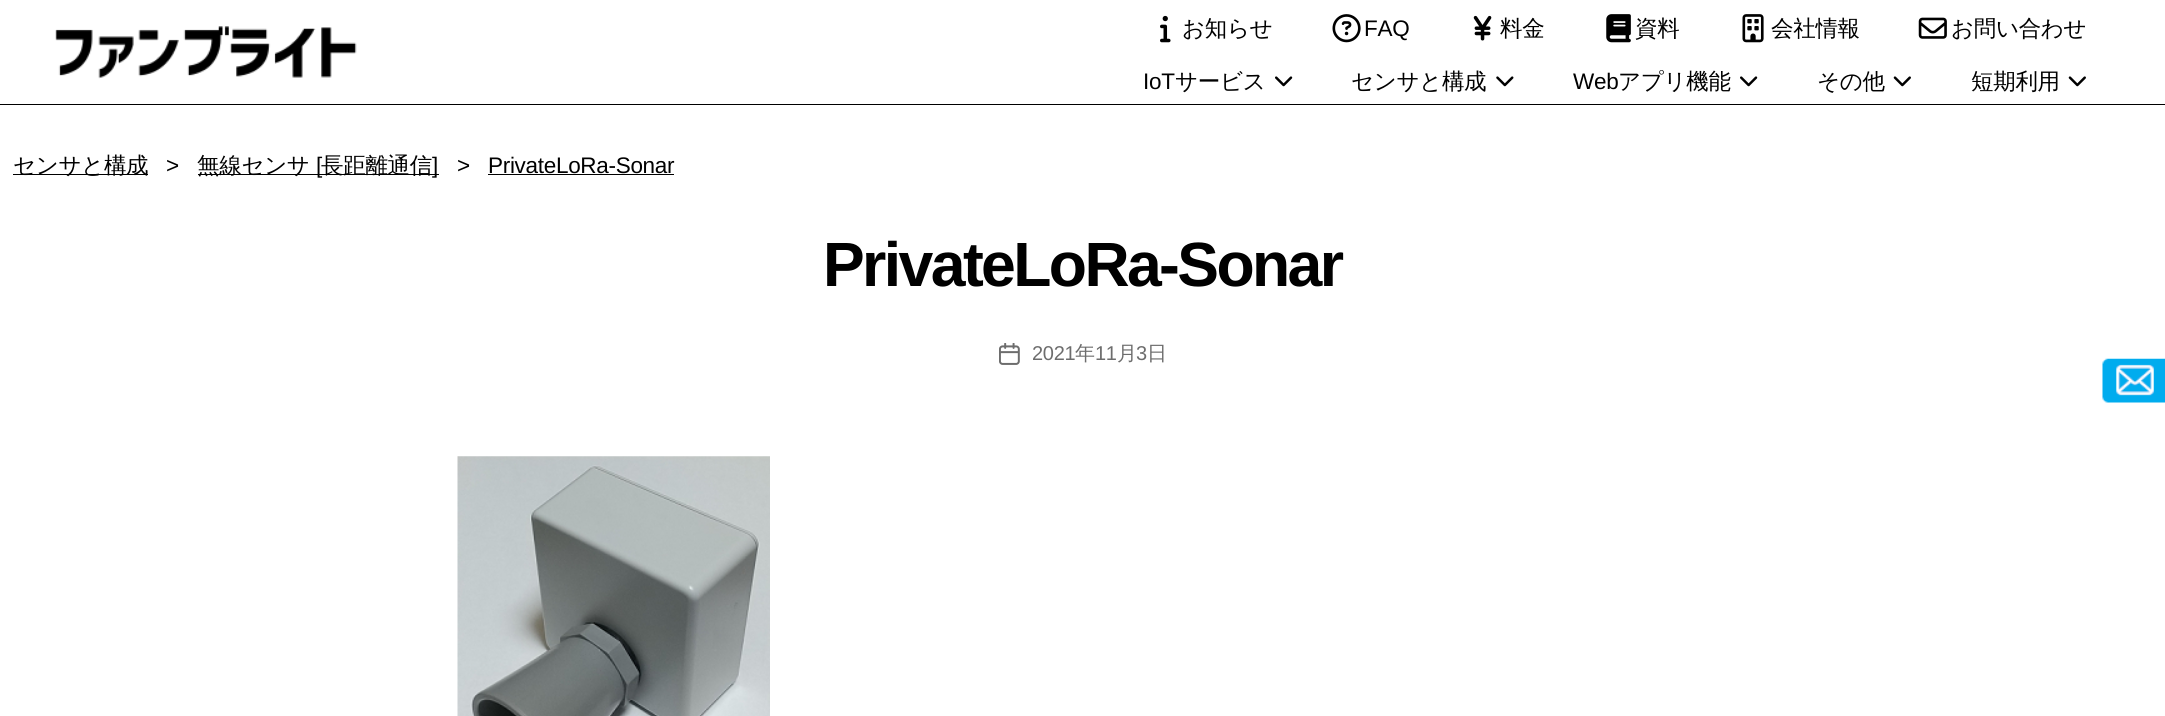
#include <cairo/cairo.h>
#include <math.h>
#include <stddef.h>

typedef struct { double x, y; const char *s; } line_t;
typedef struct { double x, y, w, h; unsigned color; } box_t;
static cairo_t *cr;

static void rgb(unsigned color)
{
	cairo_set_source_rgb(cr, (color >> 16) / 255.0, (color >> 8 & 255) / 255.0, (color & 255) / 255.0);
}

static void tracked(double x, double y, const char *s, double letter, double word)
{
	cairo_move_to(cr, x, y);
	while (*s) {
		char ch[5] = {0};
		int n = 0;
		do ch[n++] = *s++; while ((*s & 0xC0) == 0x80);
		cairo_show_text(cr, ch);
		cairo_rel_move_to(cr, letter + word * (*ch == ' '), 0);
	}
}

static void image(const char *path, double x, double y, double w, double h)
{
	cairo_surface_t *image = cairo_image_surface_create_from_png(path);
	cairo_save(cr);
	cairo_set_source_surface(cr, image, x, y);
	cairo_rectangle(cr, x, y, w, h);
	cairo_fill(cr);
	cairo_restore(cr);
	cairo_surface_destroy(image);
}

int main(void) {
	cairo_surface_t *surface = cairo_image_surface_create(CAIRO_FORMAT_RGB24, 2165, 716);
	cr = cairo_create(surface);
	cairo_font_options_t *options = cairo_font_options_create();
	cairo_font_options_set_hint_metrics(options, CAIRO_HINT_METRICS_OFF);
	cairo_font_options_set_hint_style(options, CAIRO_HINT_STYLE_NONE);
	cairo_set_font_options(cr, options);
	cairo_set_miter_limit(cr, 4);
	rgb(0xffffff);
	cairo_paint(cr);
	rgb(0x000000);
	cairo_rectangle(cr, 0, 104, 2165, 1);
	cairo_fill(cr);
	image("img/1.png", 55, 26, 302, 53);
	image("img/2.png", 1160, 15, 11, 28);
	image("img/3.png", 1332, 14, 29, 29);
	image("img/4.png", 1473, 15, 19, 26);
	image("img/5.png", 1606, 14, 25, 29);
	image("img/6.png", 1742, 14, 22, 29);
	image("img/7.png", 1918, 17, 29, 22);
	image("img/8.png", 1275, 76, 18, 11);
	image("img/9.png", 1496, 76, 18, 11);
	image("img/8.png", 1740, 76, 18, 11);
	image("img/10.png", 1893, 76, 18, 11);
	image("img/10.png", 2068, 76, 18, 11);
	{
		static const box_t items[] = {
			{13, 174, 135, 1, 0x000000},
			{198, 174, 241, 1, 0x000000},
			{488, 174, 186, 1, 0x000000},
		};
		for (size_t i = 0; i < sizeof items / sizeof *items; i++) {
			rgb(items[i].color);
			cairo_rectangle(cr, items[i].x, items[i].y, items[i].w, items[i].h);
			cairo_fill(cr);
		}
	}
	image("img/11.png", 999, 343, 21, 22);
	image("img/12.png", 2102, 358, 63, 45);
	image("img/13.png", 457, 456, 313, 260);
	cairo_select_font_face(cr, "WenQuanYi Zen Hei Medium", CAIRO_FONT_SLANT_NORMAL, CAIRO_FONT_WEIGHT_NORMAL);
	cairo_set_font_size(cr, 22.5);
	tracked(1182, 36, "お知らせ", -0.3, 0);
	cairo_select_font_face(cr, "Liberation Sans", CAIRO_FONT_SLANT_NORMAL, CAIRO_FONT_WEIGHT_NORMAL);
	tracked(1364, 36, "FAQ", -0.3, 0);
	cairo_select_font_face(cr, "WenQuanYi Zen Hei Medium", CAIRO_FONT_SLANT_NORMAL, CAIRO_FONT_WEIGHT_NORMAL);
	{
		static const line_t items[] = {
			{1500, 36, "料金"},
			{1635, 36, "資料"},
			{1771, 36, "会社情報"},
			{1951, 36, "お問い合わせ"},
		};
		for (size_t i = 0; i < sizeof items / sizeof *items; i++) {
			tracked(items[i].x, items[i].y, items[i].s, -0.3, 0);
		}
	}
	cairo_select_font_face(cr, "Liberation Sans", CAIRO_FONT_SLANT_NORMAL, CAIRO_FONT_WEIGHT_NORMAL);
	tracked(1143, 89, "IoT", -0.3, 0);
	cairo_select_font_face(cr, "WenQuanYi Zen Hei Medium", CAIRO_FONT_SLANT_NORMAL, CAIRO_FONT_WEIGHT_NORMAL);
	tracked(1175, 89, "サービス", -0.3, 0);
	tracked(1351, 89, "センサと構成", -0.3, 0);
	cairo_select_font_face(cr, "Liberation Sans", CAIRO_FONT_SLANT_NORMAL, CAIRO_FONT_WEIGHT_NORMAL);
	tracked(1573, 89, "Web", -0.3, 0);
	cairo_select_font_face(cr, "WenQuanYi Zen Hei Medium", CAIRO_FONT_SLANT_NORMAL, CAIRO_FONT_WEIGHT_NORMAL);
	{
		static const line_t items[] = {
			{1618, 89, "アプリ機能"},
			{1817, 89, "その他"},
			{1971, 89, "短期利用"},
			{13, 173, "センサと構成"},
		};
		for (size_t i = 0; i < sizeof items / sizeof *items; i++) {
			tracked(items[i].x, items[i].y, items[i].s, -0.3, 0);
		}
	}
	cairo_select_font_face(cr, "Liberation Sans", CAIRO_FONT_SLANT_NORMAL, CAIRO_FONT_WEIGHT_NORMAL);
	tracked(166, 173, ">", -0.3, 0);
	cairo_select_font_face(cr, "WenQuanYi Zen Hei Medium", CAIRO_FONT_SLANT_NORMAL, CAIRO_FONT_WEIGHT_NORMAL);
	tracked(197, 173, "無線センサ", -0.3, 0);
	cairo_select_font_face(cr, "Liberation Sans", CAIRO_FONT_SLANT_NORMAL, CAIRO_FONT_WEIGHT_NORMAL);
	tracked(316, 173, "[", -0.3, 0);
	cairo_select_font_face(cr, "WenQuanYi Zen Hei Medium", CAIRO_FONT_SLANT_NORMAL, CAIRO_FONT_WEIGHT_NORMAL);
	tracked(321, 173, "長距離通信", -0.3, 0);
	cairo_select_font_face(cr, "Liberation Sans", CAIRO_FONT_SLANT_NORMAL, CAIRO_FONT_WEIGHT_NORMAL);
	{
		static const line_t items[] = {
			{432, 173, "]"},
			{457, 173, ">"},
			{488, 173, "PrivateLoRa-Sonar"},
		};
		for (size_t i = 0; i < sizeof items / sizeof *items; i++) {
			tracked(items[i].x, items[i].y, items[i].s, -0.3, 0);
		}
	}
	cairo_select_font_face(cr, "Liberation Sans", CAIRO_FONT_SLANT_NORMAL, CAIRO_FONT_WEIGHT_BOLD);
	cairo_set_font_size(cr, 62.5);
	tracked(823, 286, "PrivateLoRa-Sonar", -2.6, 0);
	cairo_select_font_face(cr, "Liberation Sans", CAIRO_FONT_SLANT_NORMAL, CAIRO_FONT_WEIGHT_NORMAL);
	cairo_set_font_size(cr, 20);
	rgb(0x6d6d6d);
	tracked(1032, 360, "2021", -0.3, 0);
	cairo_select_font_face(cr, "WenQuanYi Zen Hei Medium", CAIRO_FONT_SLANT_NORMAL, CAIRO_FONT_WEIGHT_NORMAL);
	tracked(1075, 360, "年", -0.3, 0);
	cairo_select_font_face(cr, "Liberation Sans", CAIRO_FONT_SLANT_NORMAL, CAIRO_FONT_WEIGHT_NORMAL);
	tracked(1095, 360, "11", -0.3, 0);
	cairo_select_font_face(cr, "WenQuanYi Zen Hei Medium", CAIRO_FONT_SLANT_NORMAL, CAIRO_FONT_WEIGHT_NORMAL);
	tracked(1117, 360, "月", -0.3, 0);
	cairo_select_font_face(cr, "Liberation Sans", CAIRO_FONT_SLANT_NORMAL, CAIRO_FONT_WEIGHT_NORMAL);
	tracked(1136, 360, "3", -0.3, 0);
	cairo_select_font_face(cr, "WenQuanYi Zen Hei Medium", CAIRO_FONT_SLANT_NORMAL, CAIRO_FONT_WEIGHT_NORMAL);
	tracked(1147, 360, "日", -0.3, 0);
	cairo_surface_write_to_png(surface, "page.png");
	cairo_font_options_destroy(options);
	cairo_destroy(cr);
	cairo_surface_destroy(surface);
	return 0;
}
